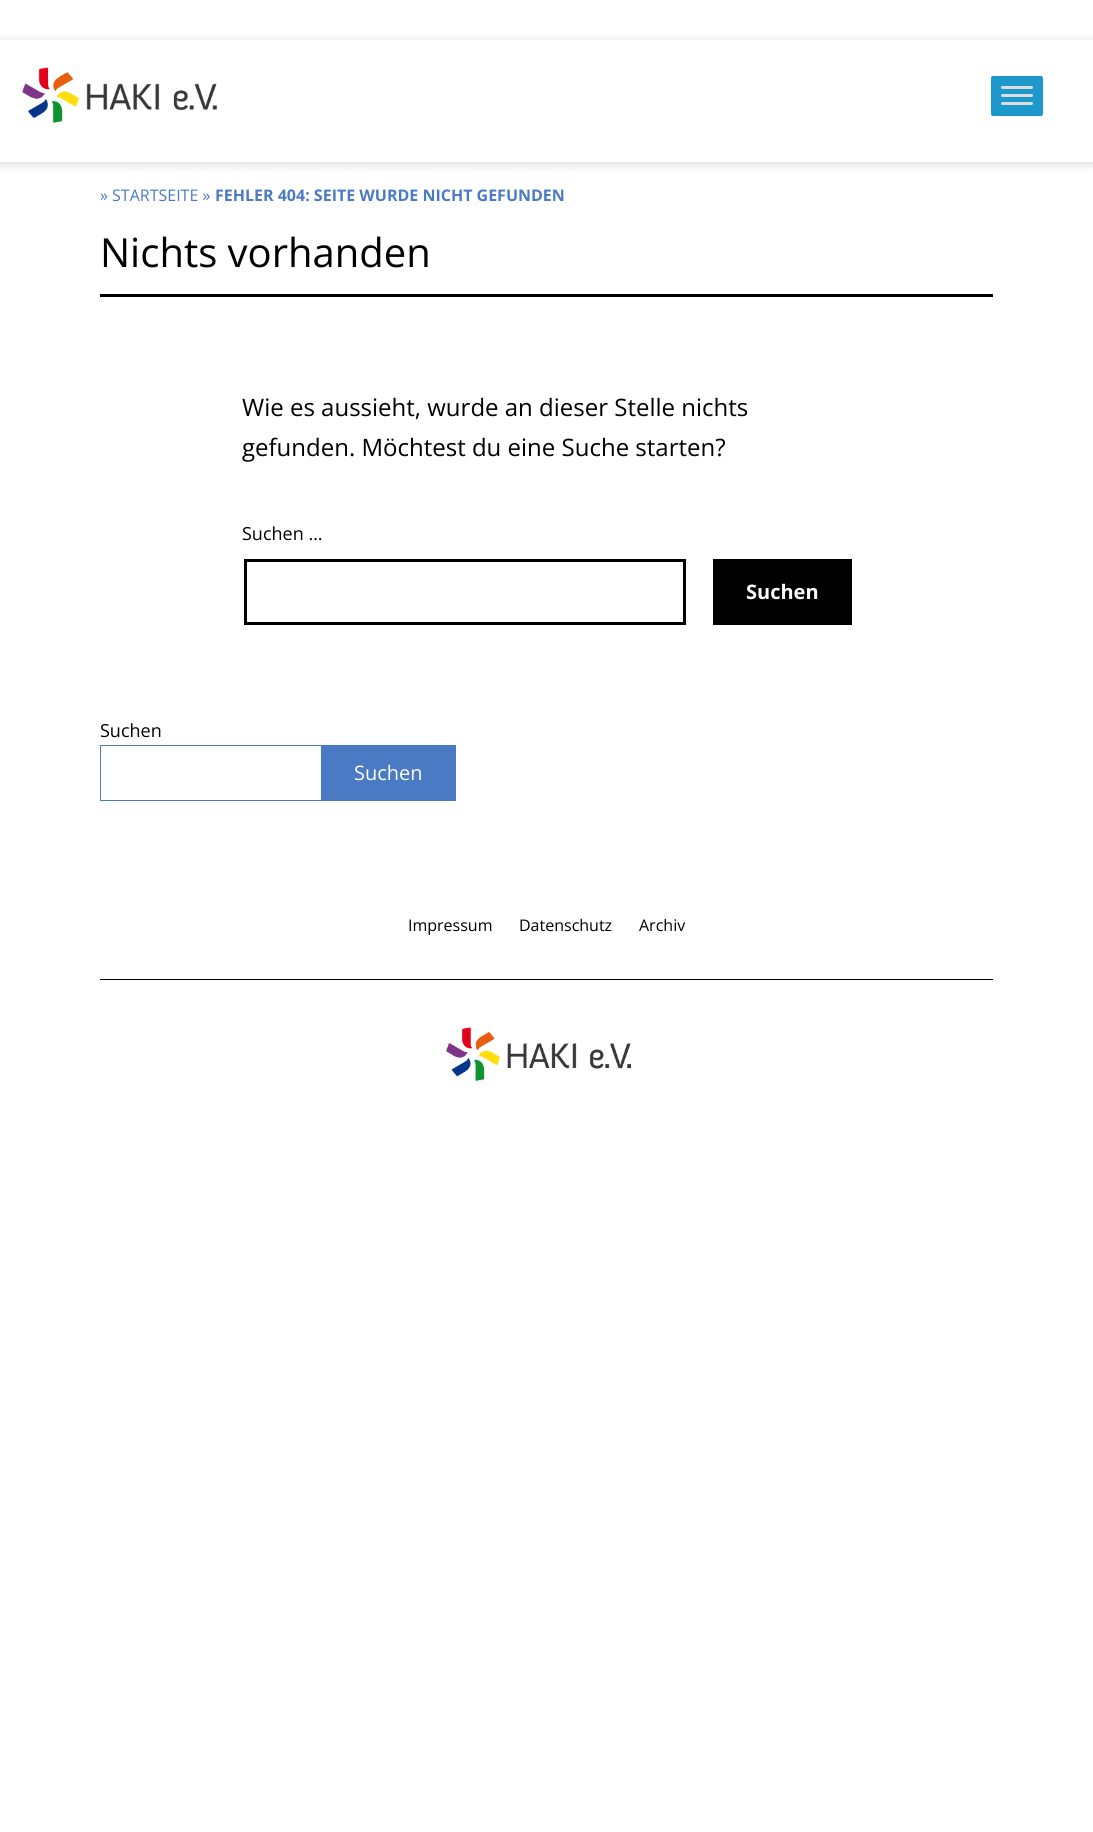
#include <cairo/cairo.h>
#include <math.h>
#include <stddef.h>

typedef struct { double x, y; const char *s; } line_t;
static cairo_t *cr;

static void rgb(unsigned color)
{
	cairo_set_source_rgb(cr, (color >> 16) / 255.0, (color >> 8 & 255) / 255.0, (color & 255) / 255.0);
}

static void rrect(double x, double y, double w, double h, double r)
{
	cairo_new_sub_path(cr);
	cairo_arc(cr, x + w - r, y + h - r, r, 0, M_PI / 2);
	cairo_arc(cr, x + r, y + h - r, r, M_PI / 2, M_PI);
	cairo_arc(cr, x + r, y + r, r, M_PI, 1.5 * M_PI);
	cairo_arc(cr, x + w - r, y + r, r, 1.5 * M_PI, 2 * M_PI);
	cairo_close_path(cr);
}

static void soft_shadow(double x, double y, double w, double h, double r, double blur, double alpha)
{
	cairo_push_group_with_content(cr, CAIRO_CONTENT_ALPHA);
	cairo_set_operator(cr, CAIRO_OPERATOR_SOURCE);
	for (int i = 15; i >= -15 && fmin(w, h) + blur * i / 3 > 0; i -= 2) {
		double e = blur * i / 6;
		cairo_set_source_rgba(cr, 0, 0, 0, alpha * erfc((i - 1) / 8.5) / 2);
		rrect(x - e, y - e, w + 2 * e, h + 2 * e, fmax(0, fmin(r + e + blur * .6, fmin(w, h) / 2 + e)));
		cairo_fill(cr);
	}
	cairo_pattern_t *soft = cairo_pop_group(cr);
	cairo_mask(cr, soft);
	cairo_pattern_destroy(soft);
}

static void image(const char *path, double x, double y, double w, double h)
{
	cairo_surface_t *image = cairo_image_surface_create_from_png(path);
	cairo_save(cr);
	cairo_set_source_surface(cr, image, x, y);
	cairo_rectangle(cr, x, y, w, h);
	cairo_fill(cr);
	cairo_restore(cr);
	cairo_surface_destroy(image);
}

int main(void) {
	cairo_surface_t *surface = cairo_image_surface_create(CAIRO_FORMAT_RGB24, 1093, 1832);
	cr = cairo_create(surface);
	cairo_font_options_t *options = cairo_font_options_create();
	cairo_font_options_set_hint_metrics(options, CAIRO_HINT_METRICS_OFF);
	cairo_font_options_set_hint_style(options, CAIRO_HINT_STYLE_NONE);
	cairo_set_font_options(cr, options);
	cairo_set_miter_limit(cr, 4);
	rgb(0xffffff);
	cairo_paint(cr);
	cairo_save(cr);
	cairo_set_fill_rule(cr, CAIRO_FILL_RULE_EVEN_ODD);
	cairo_new_path(cr);
	cairo_move_to(cr, 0, 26);
	cairo_line_to(cr, 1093, 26);
	cairo_line_to(cr, 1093, 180);
	cairo_line_to(cr, 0, 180);
	cairo_close_path(cr);
	cairo_move_to(cr, 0, 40);
	cairo_line_to(cr, 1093, 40);
	cairo_line_to(cr, 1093, 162);
	cairo_line_to(cr, 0, 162);
	cairo_close_path(cr);
	cairo_clip(cr);
	rgb(0x000000);
	soft_shadow(0, 42, 1093, 122, 0, 5, 0.16);
	cairo_restore(cr);
	image("img/1.png", 22, 67, 195, 56);
	rgb(0x1d98cc);
	rrect(991, 76, 52, 40, 2);
	cairo_fill(cr);
	rgb(0xdddddd);
	rrect(1001, 86, 32, 3, 1.5);
	cairo_fill(cr);
	rrect(1001, 94, 32, 3, 1.5);
	cairo_fill(cr);
	rrect(1001, 102, 32, 3, 1.5);
	cairo_fill(cr);
	rgb(0x000000);
	cairo_rectangle(cr, 100, 294, 893, 3);
	cairo_fill(cr);
	cairo_rectangle(cr, 245.5, 560.5, 439, 63);
	cairo_set_line_width(cr, 3);
	cairo_stroke(cr);
	cairo_rectangle(cr, 713, 559, 139, 66);
	cairo_fill(cr);
	cairo_rectangle(cr, 100.5, 745.5, 223, 55);
	rgb(0x4b7ac4);
	cairo_set_line_width(cr, 1);
	cairo_stroke(cr);
	cairo_rectangle(cr, 321, 745, 135, 56);
	cairo_fill(cr);
	rgb(0x000000);
	cairo_rectangle(cr, 100, 979, 893, 1);
	cairo_fill(cr);
	image("img/2.png", 446, 1027, 186, 54);
	cairo_select_font_face(cr, "Open Sans", CAIRO_FONT_SLANT_NORMAL, CAIRO_FONT_WEIGHT_NORMAL);
	cairo_set_font_size(cr, 16);
	rgb(0x4b7ac4);
	cairo_move_to(cr, 100, 201);
	cairo_show_text(cr, "» STARTSEITE »");
	cairo_select_font_face(cr, "Open Sans", CAIRO_FONT_SLANT_NORMAL, CAIRO_FONT_WEIGHT_BOLD);
	cairo_move_to(cr, 215, 201);
	cairo_show_text(cr, "FEHLER 404: SEITE WURDE NICHT GEFUNDEN");
	cairo_select_font_face(cr, "Open Sans", CAIRO_FONT_SLANT_NORMAL, CAIRO_FONT_WEIGHT_NORMAL);
	cairo_set_font_size(cr, 40);
	rgb(0x000000);
	cairo_move_to(cr, 100, 267);
	cairo_show_text(cr, "Nichts vorhanden");
	cairo_set_font_size(cr, 24);
	cairo_move_to(cr, 242, 416);
	cairo_show_text(cr, "Wie es aussieht, wurde an dieser Stelle nichts");
	cairo_move_to(cr, 242, 456);
	cairo_show_text(cr, "gefunden. Möchtest du eine Suche starten?");
	cairo_set_font_size(cr, 18);
	cairo_move_to(cr, 242, 540);
	cairo_show_text(cr, "Suchen …");
	cairo_select_font_face(cr, "Open Sans", CAIRO_FONT_SLANT_NORMAL, CAIRO_FONT_WEIGHT_BOLD);
	cairo_set_font_size(cr, 20);
	rgb(0xffffff);
	cairo_move_to(cr, 746, 599);
	cairo_show_text(cr, "Suchen");
	cairo_select_font_face(cr, "Open Sans", CAIRO_FONT_SLANT_NORMAL, CAIRO_FONT_WEIGHT_NORMAL);
	cairo_set_font_size(cr, 18);
	rgb(0x000000);
	cairo_move_to(cr, 100, 737);
	cairo_show_text(cr, "Suchen");
	cairo_set_font_size(cr, 20);
	rgb(0xffffff);
	cairo_move_to(cr, 354, 780);
	cairo_show_text(cr, "Suchen");
	cairo_set_font_size(cr, 16);
	rgb(0x000000);
	{
		static const line_t items[] = {
			{408, 931, "Impressum"},
			{519, 931, "Datenschutz"},
			{639, 931, "Archiv"},
		};
		for (size_t i = 0; i < sizeof items / sizeof *items; i++) {
			cairo_move_to(cr, items[i].x, items[i].y);
			cairo_show_text(cr, items[i].s);
		}
	}
	cairo_surface_write_to_png(surface, "page.png");
	cairo_font_options_destroy(options);
	cairo_destroy(cr);
	cairo_surface_destroy(surface);
	return 0;
}
